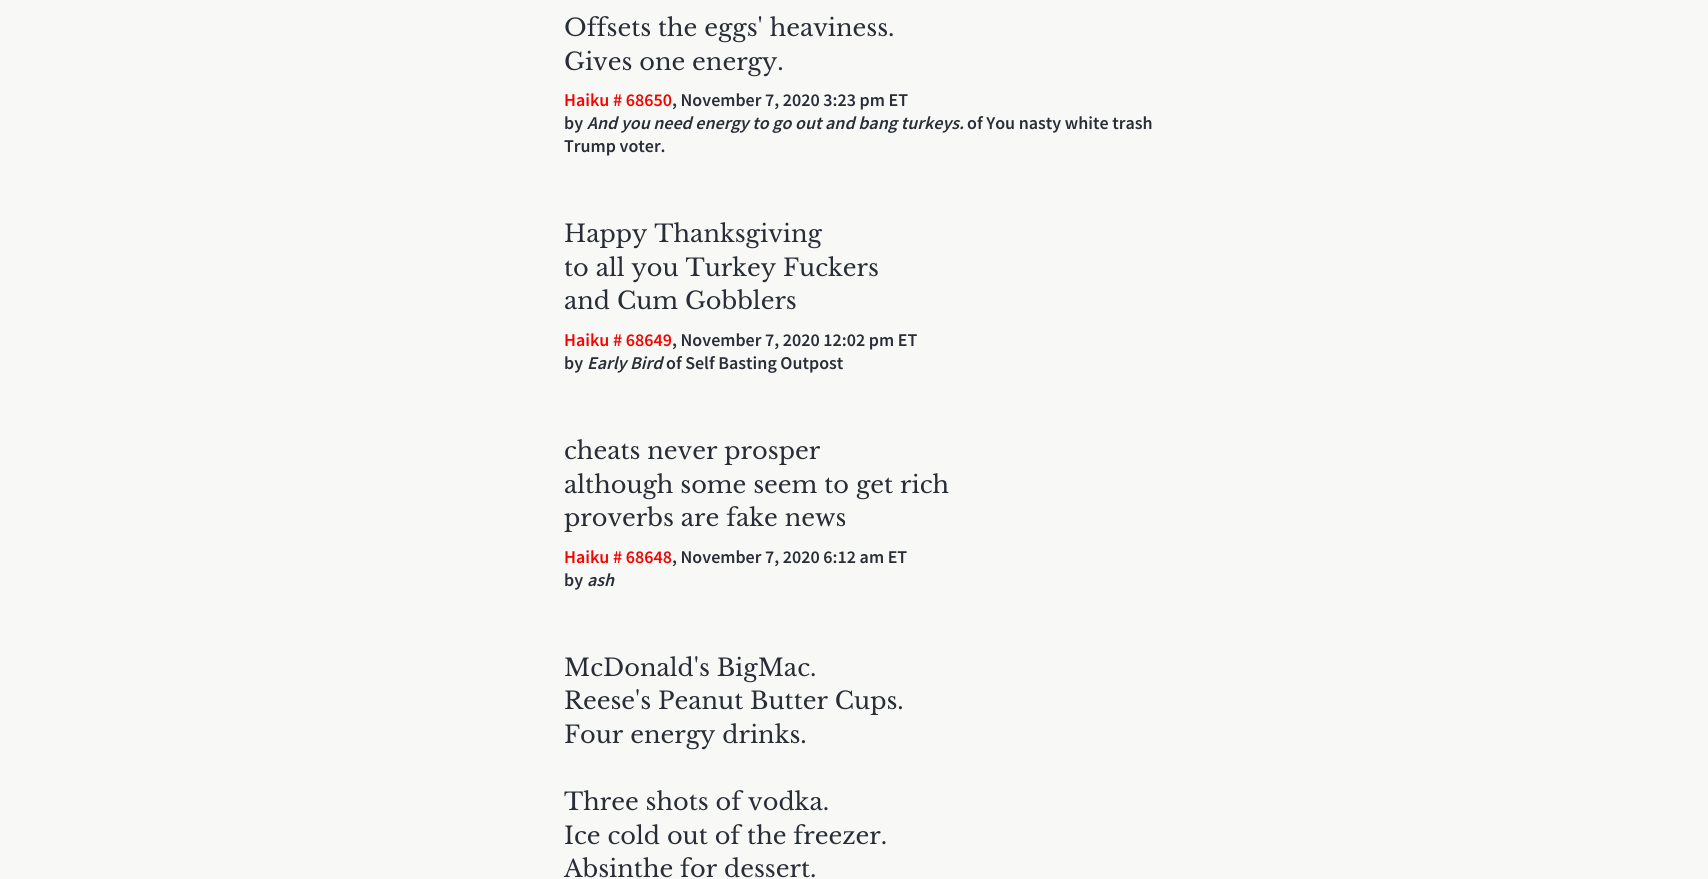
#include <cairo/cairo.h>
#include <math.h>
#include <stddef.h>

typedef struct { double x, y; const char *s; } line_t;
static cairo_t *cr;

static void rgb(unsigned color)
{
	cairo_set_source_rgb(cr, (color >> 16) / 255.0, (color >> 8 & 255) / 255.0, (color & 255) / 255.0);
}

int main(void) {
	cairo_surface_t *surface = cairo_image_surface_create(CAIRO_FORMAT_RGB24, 1708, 879);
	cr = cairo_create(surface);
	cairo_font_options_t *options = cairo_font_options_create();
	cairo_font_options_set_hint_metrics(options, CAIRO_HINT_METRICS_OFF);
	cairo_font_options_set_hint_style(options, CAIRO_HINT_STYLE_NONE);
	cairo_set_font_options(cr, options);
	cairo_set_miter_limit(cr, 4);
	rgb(0xf8f8f6);
	cairo_paint(cr);
	cairo_select_font_face(cr, "Libre Baskerville", CAIRO_FONT_SLANT_NORMAL, CAIRO_FONT_WEIGHT_NORMAL);
	cairo_set_font_size(cr, 24);
	rgb(0x282d36);
	cairo_move_to(cr, 564, 36);
	cairo_show_text(cr, "Offsets the eggs' heaviness.");
	cairo_move_to(cr, 564, 70);
	cairo_show_text(cr, "Gives one energy.");
	cairo_select_font_face(cr, "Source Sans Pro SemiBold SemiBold", CAIRO_FONT_SLANT_NORMAL, CAIRO_FONT_WEIGHT_NORMAL);
	cairo_set_font_size(cr, 18);
	rgb(0xf40300);
	cairo_move_to(cr, 564, 106);
	cairo_show_text(cr, "Haiku # 68650");
	rgb(0x282d36);
	cairo_move_to(cr, 672, 106);
	cairo_show_text(cr, ", November 7, 2020 3:23 pm ET");
	cairo_move_to(cr, 564, 129);
	cairo_show_text(cr, "by");
	cairo_select_font_face(cr, "Source Sans Pro SemiBold SemiBold", CAIRO_FONT_SLANT_ITALIC, CAIRO_FONT_WEIGHT_NORMAL);
	cairo_move_to(cr, 587, 129);
	cairo_show_text(cr, "And you need energy to go out and bang turkeys.");
	cairo_select_font_face(cr, "Source Sans Pro SemiBold SemiBold", CAIRO_FONT_SLANT_NORMAL, CAIRO_FONT_WEIGHT_NORMAL);
	cairo_move_to(cr, 967, 129);
	cairo_show_text(cr, "of You nasty white trash");
	cairo_move_to(cr, 564, 152);
	cairo_show_text(cr, "Trump voter.");
	cairo_select_font_face(cr, "Libre Baskerville", CAIRO_FONT_SLANT_NORMAL, CAIRO_FONT_WEIGHT_NORMAL);
	cairo_set_font_size(cr, 24);
	{
		static const line_t items[] = {
			{564, 242, "Happy Thanksgiving"},
			{564, 276, "to all you Turkey Fuckers"},
			{564, 309, "and Cum Gobblers"},
		};
		for (size_t i = 0; i < sizeof items / sizeof *items; i++) {
			cairo_move_to(cr, items[i].x, items[i].y);
			cairo_show_text(cr, items[i].s);
		}
	}
	cairo_select_font_face(cr, "Source Sans Pro SemiBold SemiBold", CAIRO_FONT_SLANT_NORMAL, CAIRO_FONT_WEIGHT_NORMAL);
	cairo_set_font_size(cr, 18);
	rgb(0xf40300);
	cairo_move_to(cr, 564, 346);
	cairo_show_text(cr, "Haiku # 68649");
	rgb(0x282d36);
	cairo_move_to(cr, 672, 346);
	cairo_show_text(cr, ", November 7, 2020 12:02 pm ET");
	cairo_move_to(cr, 564, 369);
	cairo_show_text(cr, "by");
	cairo_select_font_face(cr, "Source Sans Pro SemiBold SemiBold", CAIRO_FONT_SLANT_ITALIC, CAIRO_FONT_WEIGHT_NORMAL);
	cairo_move_to(cr, 587, 369);
	cairo_show_text(cr, "Early Bird");
	cairo_select_font_face(cr, "Source Sans Pro SemiBold SemiBold", CAIRO_FONT_SLANT_NORMAL, CAIRO_FONT_WEIGHT_NORMAL);
	cairo_move_to(cr, 666, 369);
	cairo_show_text(cr, "of Self Basting Outpost");
	cairo_select_font_face(cr, "Libre Baskerville", CAIRO_FONT_SLANT_NORMAL, CAIRO_FONT_WEIGHT_NORMAL);
	cairo_set_font_size(cr, 24);
	{
		static const line_t items[] = {
			{564, 459, "cheats never prosper"},
			{564, 493, "although some seem to get rich"},
			{564, 526, "proverbs are fake news"},
		};
		for (size_t i = 0; i < sizeof items / sizeof *items; i++) {
			cairo_move_to(cr, items[i].x, items[i].y);
			cairo_show_text(cr, items[i].s);
		}
	}
	cairo_select_font_face(cr, "Source Sans Pro SemiBold SemiBold", CAIRO_FONT_SLANT_NORMAL, CAIRO_FONT_WEIGHT_NORMAL);
	cairo_set_font_size(cr, 18);
	rgb(0xf40300);
	cairo_move_to(cr, 564, 563);
	cairo_show_text(cr, "Haiku # 68648");
	rgb(0x282d36);
	cairo_move_to(cr, 672, 563);
	cairo_show_text(cr, ", November 7, 2020 6:12 am ET");
	cairo_move_to(cr, 564, 586);
	cairo_show_text(cr, "by");
	cairo_select_font_face(cr, "Source Sans Pro SemiBold SemiBold", CAIRO_FONT_SLANT_ITALIC, CAIRO_FONT_WEIGHT_NORMAL);
	cairo_move_to(cr, 587, 586);
	cairo_show_text(cr, "ash");
	cairo_select_font_face(cr, "Libre Baskerville", CAIRO_FONT_SLANT_NORMAL, CAIRO_FONT_WEIGHT_NORMAL);
	cairo_set_font_size(cr, 24);
	{
		static const line_t items[] = {
			{564, 676, "McDonald's BigMac."},
			{564, 709, "Reese's Peanut Butter Cups."},
			{564, 743, "Four energy drinks."},
			{564, 810, "Three shots of vodka."},
			{564, 844, "Ice cold out of the freezer."},
			{564, 877, "Absinthe for dessert."},
		};
		for (size_t i = 0; i < sizeof items / sizeof *items; i++) {
			cairo_move_to(cr, items[i].x, items[i].y);
			cairo_show_text(cr, items[i].s);
		}
	}
	cairo_surface_write_to_png(surface, "page.png");
	cairo_font_options_destroy(options);
	cairo_destroy(cr);
	cairo_surface_destroy(surface);
	return 0;
}
